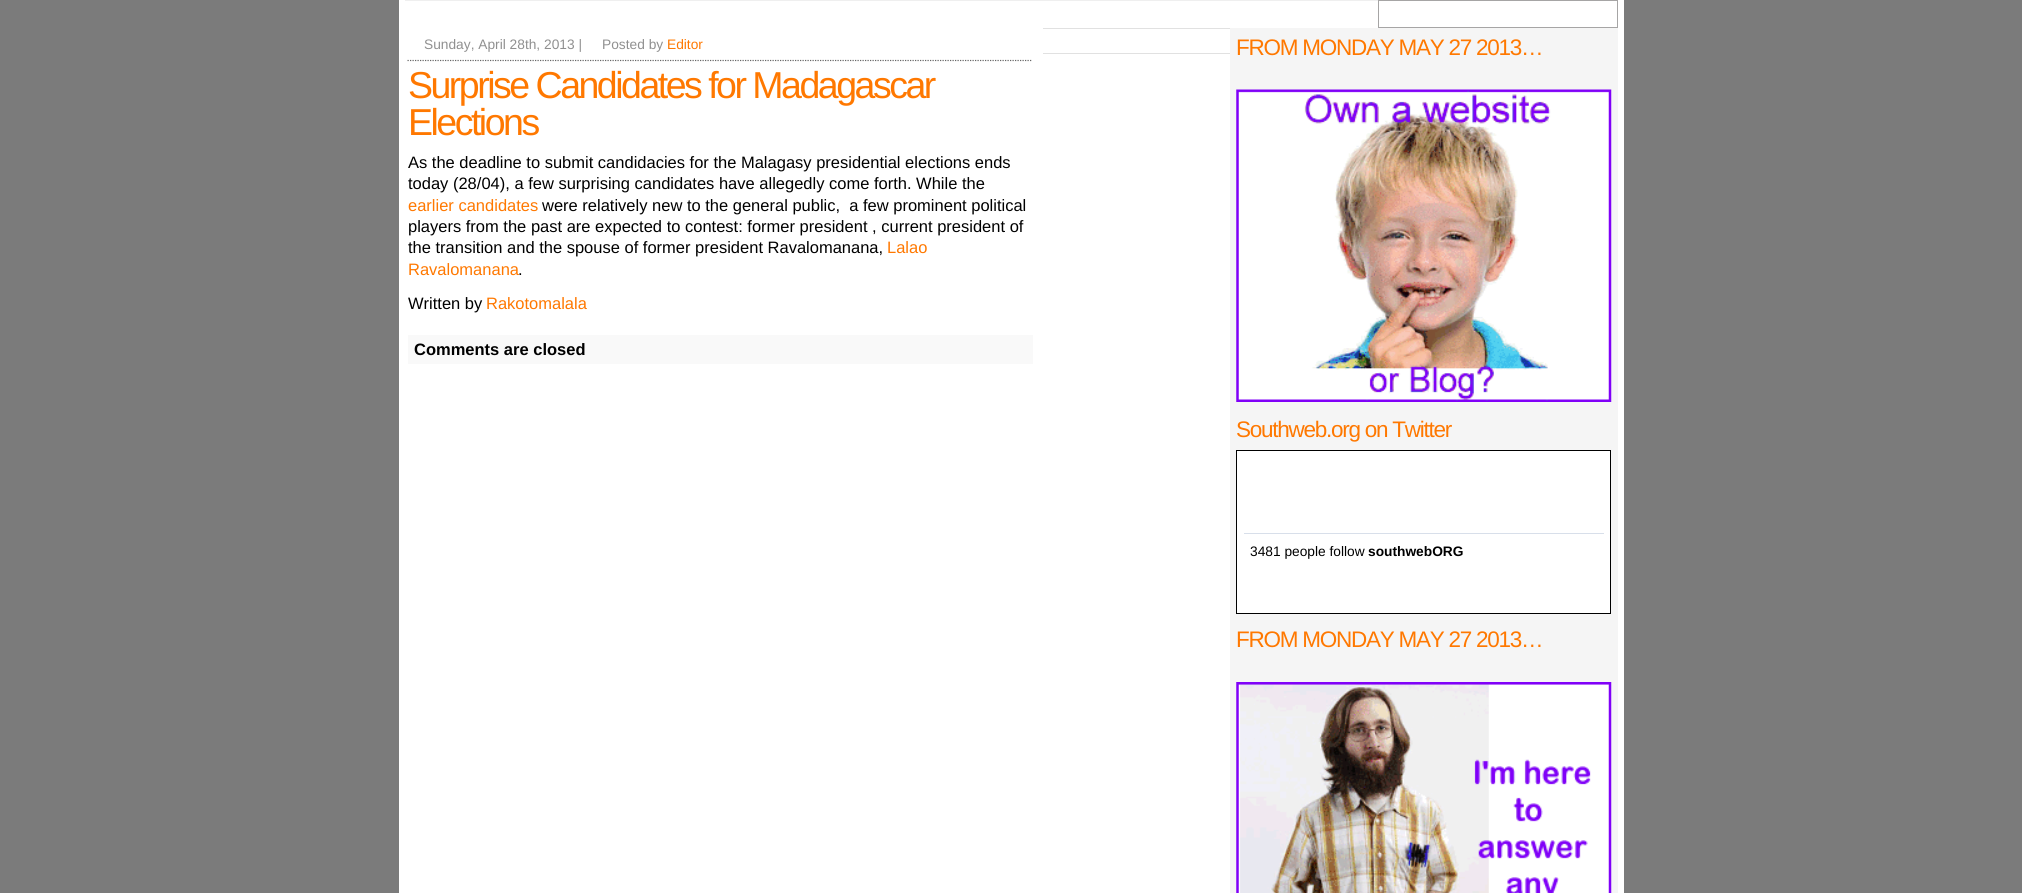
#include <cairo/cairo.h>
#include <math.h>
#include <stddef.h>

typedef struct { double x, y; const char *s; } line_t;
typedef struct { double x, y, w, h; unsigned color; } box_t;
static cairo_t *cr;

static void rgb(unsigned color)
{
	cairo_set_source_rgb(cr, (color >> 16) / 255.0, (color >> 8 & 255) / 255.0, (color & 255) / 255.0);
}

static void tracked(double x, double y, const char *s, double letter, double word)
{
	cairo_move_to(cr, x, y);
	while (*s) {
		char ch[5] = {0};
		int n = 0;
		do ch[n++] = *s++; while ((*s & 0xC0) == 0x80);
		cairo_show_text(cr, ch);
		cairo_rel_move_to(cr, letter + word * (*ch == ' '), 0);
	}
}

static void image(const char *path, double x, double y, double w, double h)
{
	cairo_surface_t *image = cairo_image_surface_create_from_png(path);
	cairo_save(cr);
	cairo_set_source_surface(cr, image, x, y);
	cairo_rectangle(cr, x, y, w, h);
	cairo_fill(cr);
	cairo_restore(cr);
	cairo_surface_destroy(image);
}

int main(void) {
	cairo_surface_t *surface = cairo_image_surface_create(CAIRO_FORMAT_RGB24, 2022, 893);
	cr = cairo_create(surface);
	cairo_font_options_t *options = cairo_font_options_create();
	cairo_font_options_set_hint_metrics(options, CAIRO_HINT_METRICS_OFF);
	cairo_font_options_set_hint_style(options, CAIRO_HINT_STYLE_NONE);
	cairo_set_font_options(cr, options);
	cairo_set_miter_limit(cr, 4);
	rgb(0x7b7b7b);
	cairo_paint(cr);
	rgb(0xffffff);
	cairo_rectangle(cr, 399, 0, 1225, 893);
	cairo_fill(cr);
	rgb(0xefefef);
	cairo_rectangle(cr, 405, 0, 973, 1);
	cairo_fill(cr);
	cairo_rectangle(cr, 1378.5, 0.5, 239, 27);
	rgb(0xa6a5a5);
	cairo_set_line_width(cr, 1);
	cairo_stroke(cr);
	cairo_new_path(cr);
	cairo_move_to(cr, 407.5, 60.5);
	cairo_line_to(cr, 1032.5, 60.5);
	rgb(0x666666);
	cairo_set_line_width(cr, 1.2);
	cairo_set_dash(cr, (double[]){1.25, 1.25}, 2, 0);
	cairo_stroke(cr);
	{
		static const box_t items[] = {
			{408, 335, 625, 29, 0xf9f9f9},
			{1043, 28, 187, 1, 0xe1e1e1},
			{1043, 53, 187, 1, 0xe1e1e1},
			{1230, 28, 388, 865, 0xf5f5f5},
		};
		for (size_t i = 0; i < sizeof items / sizeof *items; i++) {
			rgb(items[i].color);
			cairo_rectangle(cr, items[i].x, items[i].y, items[i].w, items[i].h);
			cairo_fill(cr);
		}
	}
	image("img/1.png", 1236, 89, 376, 313);
	rgb(0xffffff);
	cairo_rectangle(cr, 1236.5, 450.5, 374, 163);
	cairo_fill_preserve(cr);
	rgb(0x000000);
	cairo_set_line_width(cr, 1);
	cairo_set_dash(cr, NULL, 0, 0);
	cairo_stroke(cr);
	rgb(0xd8dfea);
	cairo_rectangle(cr, 1244, 533, 360, 1);
	cairo_fill(cr);
	image("img/2.png", 1236, 682, 376, 211);
	cairo_select_font_face(cr, "Liberation Sans", CAIRO_FONT_SLANT_NORMAL, CAIRO_FONT_WEIGHT_NORMAL);
	cairo_set_font_size(cr, 13.75);
	rgb(0x909090);
	cairo_move_to(cr, 424, 49);
	cairo_show_text(cr, "Sunday, April 28th, 2013 |");
	cairo_move_to(cr, 602, 49);
	cairo_show_text(cr, "Posted by");
	rgb(0xff7800);
	cairo_move_to(cr, 667, 49);
	cairo_show_text(cr, "Editor");
	cairo_set_font_size(cr, 37.5);
	tracked(408, 98, "Surprise Candidates for Madagascar", -2.5, 0);
	tracked(408, 135, "Elections", -2.5, 0);
	cairo_set_font_size(cr, 16.5);
	rgb(0x000000);
	cairo_move_to(cr, 408, 168);
	cairo_show_text(cr, "As the deadline to submit candidacies for the Malagasy presidential elections ends");
	cairo_move_to(cr, 408, 189);
	cairo_show_text(cr, "today (28/04), a few surprising candidates have allegedly come forth. While the");
	rgb(0xff7800);
	cairo_move_to(cr, 408, 211);
	cairo_show_text(cr, "earlier candidates");
	rgb(0x000000);
	{
		static const line_t items[] = {
			{542, 211, "were relatively new to the general public,  a few prominent political"},
			{408, 232, "players from the past are expected to contest: former president , current president of"},
			{408, 253, "the transition and the spouse of former president Ravalomanana,"},
		};
		for (size_t i = 0; i < sizeof items / sizeof *items; i++) {
			cairo_move_to(cr, items[i].x, items[i].y);
			cairo_show_text(cr, items[i].s);
		}
	}
	rgb(0xff7800);
	cairo_move_to(cr, 887, 253);
	cairo_show_text(cr, "Lalao");
	cairo_move_to(cr, 408, 275);
	cairo_show_text(cr, "Ravalomanana");
	rgb(0x000000);
	cairo_move_to(cr, 518, 275);
	cairo_show_text(cr, ".");
	cairo_move_to(cr, 408, 309);
	cairo_show_text(cr, "Written by");
	rgb(0xff7800);
	cairo_move_to(cr, 486, 309);
	cairo_show_text(cr, "Rakotomalala");
	cairo_select_font_face(cr, "Liberation Sans", CAIRO_FONT_SLANT_NORMAL, CAIRO_FONT_WEIGHT_BOLD);
	rgb(0x000000);
	cairo_move_to(cr, 414, 355);
	cairo_show_text(cr, "Comments are closed");
	cairo_select_font_face(cr, "Liberation Sans", CAIRO_FONT_SLANT_NORMAL, CAIRO_FONT_WEIGHT_NORMAL);
	cairo_set_font_size(cr, 22.5);
	rgb(0xff7800);
	tracked(1236, 55, "FROM MONDAY MAY 27 2013…", -1.25, 0);
	tracked(1236, 437, "Southweb.org on Twitter", -1.25, 0);
	cairo_set_font_size(cr, 13.75);
	rgb(0x000000);
	cairo_move_to(cr, 1250, 556);
	cairo_show_text(cr, "3481 people follow");
	cairo_select_font_face(cr, "Liberation Sans", CAIRO_FONT_SLANT_NORMAL, CAIRO_FONT_WEIGHT_BOLD);
	cairo_move_to(cr, 1368, 556);
	cairo_show_text(cr, "southwebORG");
	cairo_select_font_face(cr, "Liberation Sans", CAIRO_FONT_SLANT_NORMAL, CAIRO_FONT_WEIGHT_NORMAL);
	cairo_set_font_size(cr, 22.5);
	rgb(0xff7800);
	tracked(1236, 647, "FROM MONDAY MAY 27 2013…", -1.25, 0);
	cairo_surface_write_to_png(surface, "page.png");
	cairo_font_options_destroy(options);
	cairo_destroy(cr);
	cairo_surface_destroy(surface);
	return 0;
}
